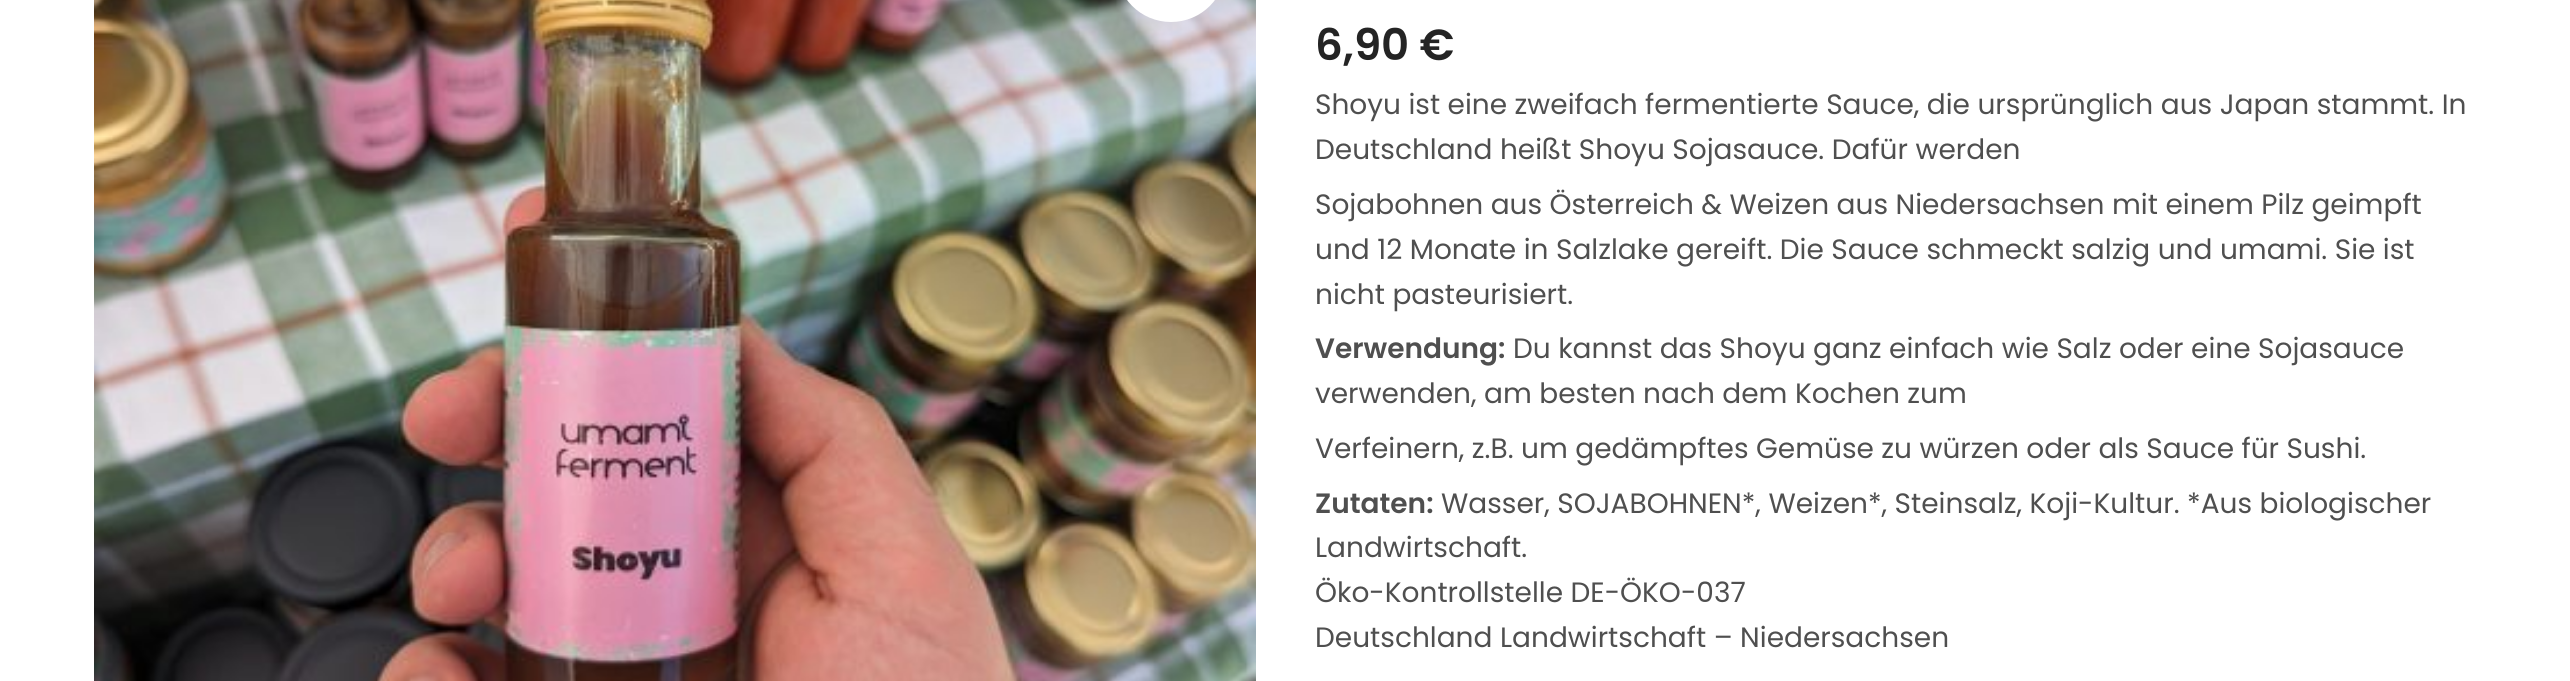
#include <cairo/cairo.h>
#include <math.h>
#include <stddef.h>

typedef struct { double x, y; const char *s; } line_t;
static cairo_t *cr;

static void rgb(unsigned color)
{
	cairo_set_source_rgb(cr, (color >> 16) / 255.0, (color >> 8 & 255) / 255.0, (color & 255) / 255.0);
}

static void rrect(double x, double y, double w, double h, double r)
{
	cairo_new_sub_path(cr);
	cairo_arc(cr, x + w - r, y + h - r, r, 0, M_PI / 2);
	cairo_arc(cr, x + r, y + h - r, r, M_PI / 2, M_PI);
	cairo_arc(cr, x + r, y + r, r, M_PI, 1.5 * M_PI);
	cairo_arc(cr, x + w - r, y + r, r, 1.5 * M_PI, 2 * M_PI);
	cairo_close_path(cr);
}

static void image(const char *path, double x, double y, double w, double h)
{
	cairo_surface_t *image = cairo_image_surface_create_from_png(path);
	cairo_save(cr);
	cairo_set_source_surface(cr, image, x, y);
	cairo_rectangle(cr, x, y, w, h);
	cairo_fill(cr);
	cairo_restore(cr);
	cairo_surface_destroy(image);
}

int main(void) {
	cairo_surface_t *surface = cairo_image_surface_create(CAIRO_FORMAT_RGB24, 2570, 681);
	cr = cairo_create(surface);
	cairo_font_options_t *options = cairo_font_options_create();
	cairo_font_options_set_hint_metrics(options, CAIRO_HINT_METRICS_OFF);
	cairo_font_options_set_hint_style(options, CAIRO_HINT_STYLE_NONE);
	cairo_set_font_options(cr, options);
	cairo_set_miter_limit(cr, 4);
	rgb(0xffffff);
	cairo_paint(cr);
	image("img/1.png", 94, 0, 1162, 681);
	rgb(0xffffff);
	rrect(1116, -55, 110, 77, 55);
	cairo_fill(cr);
	cairo_select_font_face(cr, "Poppins SemiBold", CAIRO_FONT_SLANT_NORMAL, CAIRO_FONT_WEIGHT_NORMAL);
	cairo_set_font_size(cr, 43.5);
	rgb(0x242424);
	cairo_move_to(cr, 1315, 60);
	cairo_show_text(cr, "6,90 €");
	cairo_select_font_face(cr, "Poppins", CAIRO_FONT_SLANT_NORMAL, CAIRO_FONT_WEIGHT_NORMAL);
	cairo_set_font_size(cr, 28);
	rgb(0x4f4f4f);
	{
		static const line_t items[] = {
			{1315, 114, "Shoyu ist eine zweifach fermentierte Sauce, die ursprünglich aus Japan stammt. In"},
			{1315, 159, "Deutschland heißt Shoyu Sojasauce. Dafür werden"},
			{1315, 214, "Sojabohnen aus Österreich & Weizen aus Niedersachsen mit einem Pilz geimpft"},
			{1315, 259, "und 12 Monate in Salzlake gereift. Die Sauce schmeckt salzig und umami. Sie ist"},
			{1315, 304, "nicht pasteurisiert."},
		};
		for (size_t i = 0; i < sizeof items / sizeof *items; i++) {
			cairo_move_to(cr, items[i].x, items[i].y);
			cairo_show_text(cr, items[i].s);
		}
	}
	cairo_select_font_face(cr, "Poppins SemiBold", CAIRO_FONT_SLANT_NORMAL, CAIRO_FONT_WEIGHT_NORMAL);
	cairo_move_to(cr, 1315, 358);
	cairo_show_text(cr, "Verwendung:");
	cairo_select_font_face(cr, "Poppins", CAIRO_FONT_SLANT_NORMAL, CAIRO_FONT_WEIGHT_NORMAL);
	{
		static const line_t items[] = {
			{1513, 358, "Du kannst das Shoyu ganz einfach wie Salz oder eine Sojasauce"},
			{1315, 403, "verwenden, am besten nach dem Kochen zum"},
			{1315, 458, "Verfeinern, z.B. um gedämpftes Gemüse zu würzen oder als Sauce für Sushi."},
		};
		for (size_t i = 0; i < sizeof items / sizeof *items; i++) {
			cairo_move_to(cr, items[i].x, items[i].y);
			cairo_show_text(cr, items[i].s);
		}
	}
	cairo_select_font_face(cr, "Poppins SemiBold", CAIRO_FONT_SLANT_NORMAL, CAIRO_FONT_WEIGHT_NORMAL);
	cairo_move_to(cr, 1315, 513);
	cairo_show_text(cr, "Zutaten:");
	cairo_select_font_face(cr, "Poppins", CAIRO_FONT_SLANT_NORMAL, CAIRO_FONT_WEIGHT_NORMAL);
	{
		static const line_t items[] = {
			{1441, 513, "Wasser, SOJABOHNEN*, Weizen*, Steinsalz, Koji-Kultur. *Aus biologischer"},
			{1315, 557, "Landwirtschaft."},
			{1315, 602, "Öko-Kontrollstelle DE-ÖKO-037"},
			{1315, 647, "Deutschland Landwirtschaft – Niedersachsen"},
		};
		for (size_t i = 0; i < sizeof items / sizeof *items; i++) {
			cairo_move_to(cr, items[i].x, items[i].y);
			cairo_show_text(cr, items[i].s);
		}
	}
	cairo_surface_write_to_png(surface, "page.png");
	cairo_font_options_destroy(options);
	cairo_destroy(cr);
	cairo_surface_destroy(surface);
	return 0;
}
